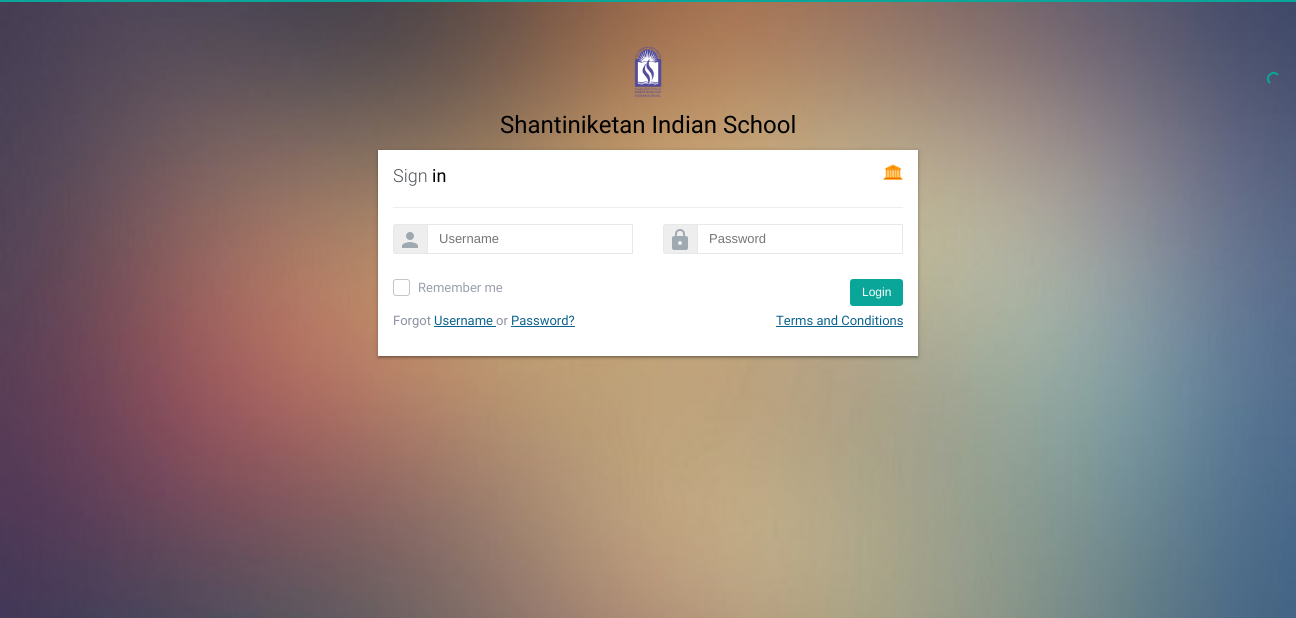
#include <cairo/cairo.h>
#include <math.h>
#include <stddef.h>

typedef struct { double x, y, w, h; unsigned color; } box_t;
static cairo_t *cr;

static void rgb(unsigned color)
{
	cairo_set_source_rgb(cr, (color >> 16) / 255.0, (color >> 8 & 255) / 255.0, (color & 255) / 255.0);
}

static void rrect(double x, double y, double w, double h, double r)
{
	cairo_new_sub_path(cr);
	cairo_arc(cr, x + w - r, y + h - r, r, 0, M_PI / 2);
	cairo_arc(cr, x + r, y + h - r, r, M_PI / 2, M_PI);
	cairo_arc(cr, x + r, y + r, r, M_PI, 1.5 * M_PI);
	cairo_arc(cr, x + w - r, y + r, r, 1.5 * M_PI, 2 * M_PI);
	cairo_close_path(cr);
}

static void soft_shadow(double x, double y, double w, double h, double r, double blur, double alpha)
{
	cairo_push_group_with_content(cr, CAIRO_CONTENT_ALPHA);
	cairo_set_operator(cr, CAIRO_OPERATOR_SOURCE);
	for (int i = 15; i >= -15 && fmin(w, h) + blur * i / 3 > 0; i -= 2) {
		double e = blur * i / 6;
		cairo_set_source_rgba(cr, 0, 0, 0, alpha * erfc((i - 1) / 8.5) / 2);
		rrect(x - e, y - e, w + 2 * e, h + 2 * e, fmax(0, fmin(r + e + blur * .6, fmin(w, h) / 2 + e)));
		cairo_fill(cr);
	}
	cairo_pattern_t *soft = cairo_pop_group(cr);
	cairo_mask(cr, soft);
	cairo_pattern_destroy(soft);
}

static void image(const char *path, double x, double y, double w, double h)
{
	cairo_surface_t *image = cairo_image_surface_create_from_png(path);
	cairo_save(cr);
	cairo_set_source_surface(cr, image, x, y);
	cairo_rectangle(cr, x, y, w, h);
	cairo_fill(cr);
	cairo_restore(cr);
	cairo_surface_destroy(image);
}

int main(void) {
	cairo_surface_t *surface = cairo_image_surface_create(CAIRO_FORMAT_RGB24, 1296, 618);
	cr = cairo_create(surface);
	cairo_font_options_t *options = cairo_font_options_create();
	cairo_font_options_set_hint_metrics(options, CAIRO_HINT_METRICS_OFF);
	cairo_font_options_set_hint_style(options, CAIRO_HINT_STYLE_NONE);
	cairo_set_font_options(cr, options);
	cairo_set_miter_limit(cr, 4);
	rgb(0xffffff);
	cairo_paint(cr);
	image("img/1.png", 0, 2, 1296, 616);
	rgb(0x0aa699);
	cairo_rectangle(cr, 0, 0, 1296, 2);
	cairo_fill(cr);
	cairo_new_path(cr);
	cairo_move_to(cr, 1270, 83);
	cairo_curve_to(cr, 1264, 77.5, 1272.5, 69, 1278, 75);
	cairo_stroke(cr);
	image("img/2.png", 634, 46, 28, 52);
	rgb(0x000000);
	soft_shadow(378, 151, 540, 206, 0, 2.5, 0.2);
	soft_shadow(380, 155, 536, 202, 0, 0.5, 0.12);
	soft_shadow(378, 152, 540, 206, 0, 1, 0.14);
	rgb(0xffffff);
	cairo_rectangle(cr, 378, 150, 540, 206);
	cairo_fill(cr);
	image("img/3.png", 883, 164, 20, 16);
	rgb(0xeeeeee);
	cairo_rectangle(cr, 393, 207, 510, 1);
	cairo_fill(cr);
	cairo_new_path(cr);
	cairo_move_to(cr, 396, 224);
	cairo_line_to(cr, 427, 224);
	cairo_line_to(cr, 427, 254);
	cairo_line_to(cr, 396, 254);
	cairo_curve_to(cr, 394.5, 254, 393, 252.5, 393, 251);
	cairo_line_to(cr, 393, 227);
	cairo_curve_to(cr, 393, 225.5, 394.5, 224, 396, 224);
	cairo_close_path(cr);
	cairo_fill(cr);
	rgb(0xe5e9ec);
	cairo_set_fill_rule(cr, CAIRO_FILL_RULE_EVEN_ODD);
	cairo_new_path(cr);
	cairo_move_to(cr, 396, 224);
	cairo_line_to(cr, 427, 224);
	cairo_line_to(cr, 427, 254);
	cairo_line_to(cr, 396, 254);
	cairo_curve_to(cr, 394.5, 254, 393, 252.5, 393, 251);
	cairo_line_to(cr, 393, 227);
	cairo_curve_to(cr, 393, 225.5, 394.5, 224, 396, 224);
	cairo_close_path(cr);
	cairo_move_to(cr, 396, 225);
	cairo_line_to(cr, 427, 225);
	cairo_line_to(cr, 427, 253);
	cairo_line_to(cr, 396, 253);
	cairo_curve_to(cr, 395, 253, 394, 252, 394, 251);
	cairo_line_to(cr, 394, 227);
	cairo_curve_to(cr, 394, 226, 395, 225, 396, 225);
	cairo_close_path(cr);
	cairo_fill(cr);
	image("img/4.png", 402, 232, 16, 16);
	cairo_rectangle(cr, 427.5, 224.5, 205, 29);
	cairo_set_line_width(cr, 1);
	cairo_stroke(cr);
	rgb(0xeeeeee);
	cairo_new_path(cr);
	cairo_move_to(cr, 666, 224);
	cairo_line_to(cr, 697, 224);
	cairo_line_to(cr, 697, 254);
	cairo_line_to(cr, 666, 254);
	cairo_curve_to(cr, 664.5, 254, 663, 252.5, 663, 251);
	cairo_line_to(cr, 663, 227);
	cairo_curve_to(cr, 663, 225.5, 664.5, 224, 666, 224);
	cairo_close_path(cr);
	cairo_fill(cr);
	rgb(0xe5e9ec);
	cairo_new_path(cr);
	cairo_move_to(cr, 666, 224);
	cairo_line_to(cr, 697, 224);
	cairo_line_to(cr, 697, 254);
	cairo_line_to(cr, 666, 254);
	cairo_curve_to(cr, 664.5, 254, 663, 252.5, 663, 251);
	cairo_line_to(cr, 663, 227);
	cairo_curve_to(cr, 663, 225.5, 664.5, 224, 666, 224);
	cairo_close_path(cr);
	cairo_move_to(cr, 666, 225);
	cairo_line_to(cr, 697, 225);
	cairo_line_to(cr, 697, 253);
	cairo_line_to(cr, 666, 253);
	cairo_curve_to(cr, 665, 253, 664, 252, 664, 251);
	cairo_line_to(cr, 664, 227);
	cairo_curve_to(cr, 664, 226, 665, 225, 666, 225);
	cairo_close_path(cr);
	cairo_fill(cr);
	image("img/5.png", 672, 229, 16, 21);
	cairo_rectangle(cr, 697.5, 224.5, 205, 29);
	cairo_stroke(cr);
	rrect(393.5, 279.5, 16, 16, 2.5);
	rgb(0xc2c6cb);
	cairo_stroke(cr);
	rgb(0x0aa699);
	rrect(850, 279, 53, 27, 3);
	cairo_fill(cr);
	{
		static const box_t items[] = {
			{434, 326, 62, 1, 0x0d638f},
			{511, 326, 64, 1, 0x0d638f},
			{776, 326, 127, 1, 0x0d638f},
		};
		for (size_t i = 0; i < sizeof items / sizeof *items; i++) {
			rgb(items[i].color);
			cairo_rectangle(cr, items[i].x, items[i].y, items[i].w, items[i].h);
			cairo_fill(cr);
		}
	}
	cairo_select_font_face(cr, "Roboto", CAIRO_FONT_SLANT_NORMAL, CAIRO_FONT_WEIGHT_NORMAL);
	cairo_set_font_size(cr, 24);
	rgb(0x000000);
	cairo_move_to(cr, 500, 133);
	cairo_show_text(cr, "Shantiniketan Indian School");
	cairo_select_font_face(cr, "Roboto Light", CAIRO_FONT_SLANT_NORMAL, CAIRO_FONT_WEIGHT_NORMAL);
	cairo_set_font_size(cr, 18);
	rgb(0x505458);
	cairo_move_to(cr, 393, 182);
	cairo_show_text(cr, "Sign");
	cairo_select_font_face(cr, "Roboto", CAIRO_FONT_SLANT_NORMAL, CAIRO_FONT_WEIGHT_NORMAL);
	rgb(0x000000);
	cairo_move_to(cr, 432, 182);
	cairo_show_text(cr, "in");
	cairo_select_font_face(cr, "Liberation Sans", CAIRO_FONT_SLANT_NORMAL, CAIRO_FONT_WEIGHT_NORMAL);
	cairo_set_font_size(cr, 13);
	rgb(0x757575);
	cairo_move_to(cr, 439, 243);
	cairo_show_text(cr, "Username");
	cairo_move_to(cr, 709, 243);
	cairo_show_text(cr, "Password");
	cairo_select_font_face(cr, "Roboto", CAIRO_FONT_SLANT_NORMAL, CAIRO_FONT_WEIGHT_NORMAL);
	rgb(0x9aa0ad);
	cairo_move_to(cr, 418, 292);
	cairo_show_text(cr, "Remember me");
	cairo_select_font_face(cr, "Liberation Sans", CAIRO_FONT_SLANT_NORMAL, CAIRO_FONT_WEIGHT_NORMAL);
	cairo_set_font_size(cr, 12);
	rgb(0xffffff);
	cairo_move_to(cr, 862, 296);
	cairo_show_text(cr, "Login");
	cairo_select_font_face(cr, "Roboto", CAIRO_FONT_SLANT_NORMAL, CAIRO_FONT_WEIGHT_NORMAL);
	cairo_set_font_size(cr, 13);
	rgb(0x8b91a0);
	cairo_move_to(cr, 393, 325);
	cairo_show_text(cr, "Forgot");
	rgb(0x0d638f);
	cairo_move_to(cr, 434, 325);
	cairo_show_text(cr, "Username");
	rgb(0x8b91a0);
	cairo_move_to(cr, 496, 325);
	cairo_show_text(cr, "or");
	rgb(0x0d638f);
	cairo_move_to(cr, 511, 325);
	cairo_show_text(cr, "Password?");
	cairo_move_to(cr, 776, 325);
	cairo_show_text(cr, "Terms and Conditions");
	cairo_surface_write_to_png(surface, "page.png");
	cairo_font_options_destroy(options);
	cairo_destroy(cr);
	cairo_surface_destroy(surface);
	return 0;
}
